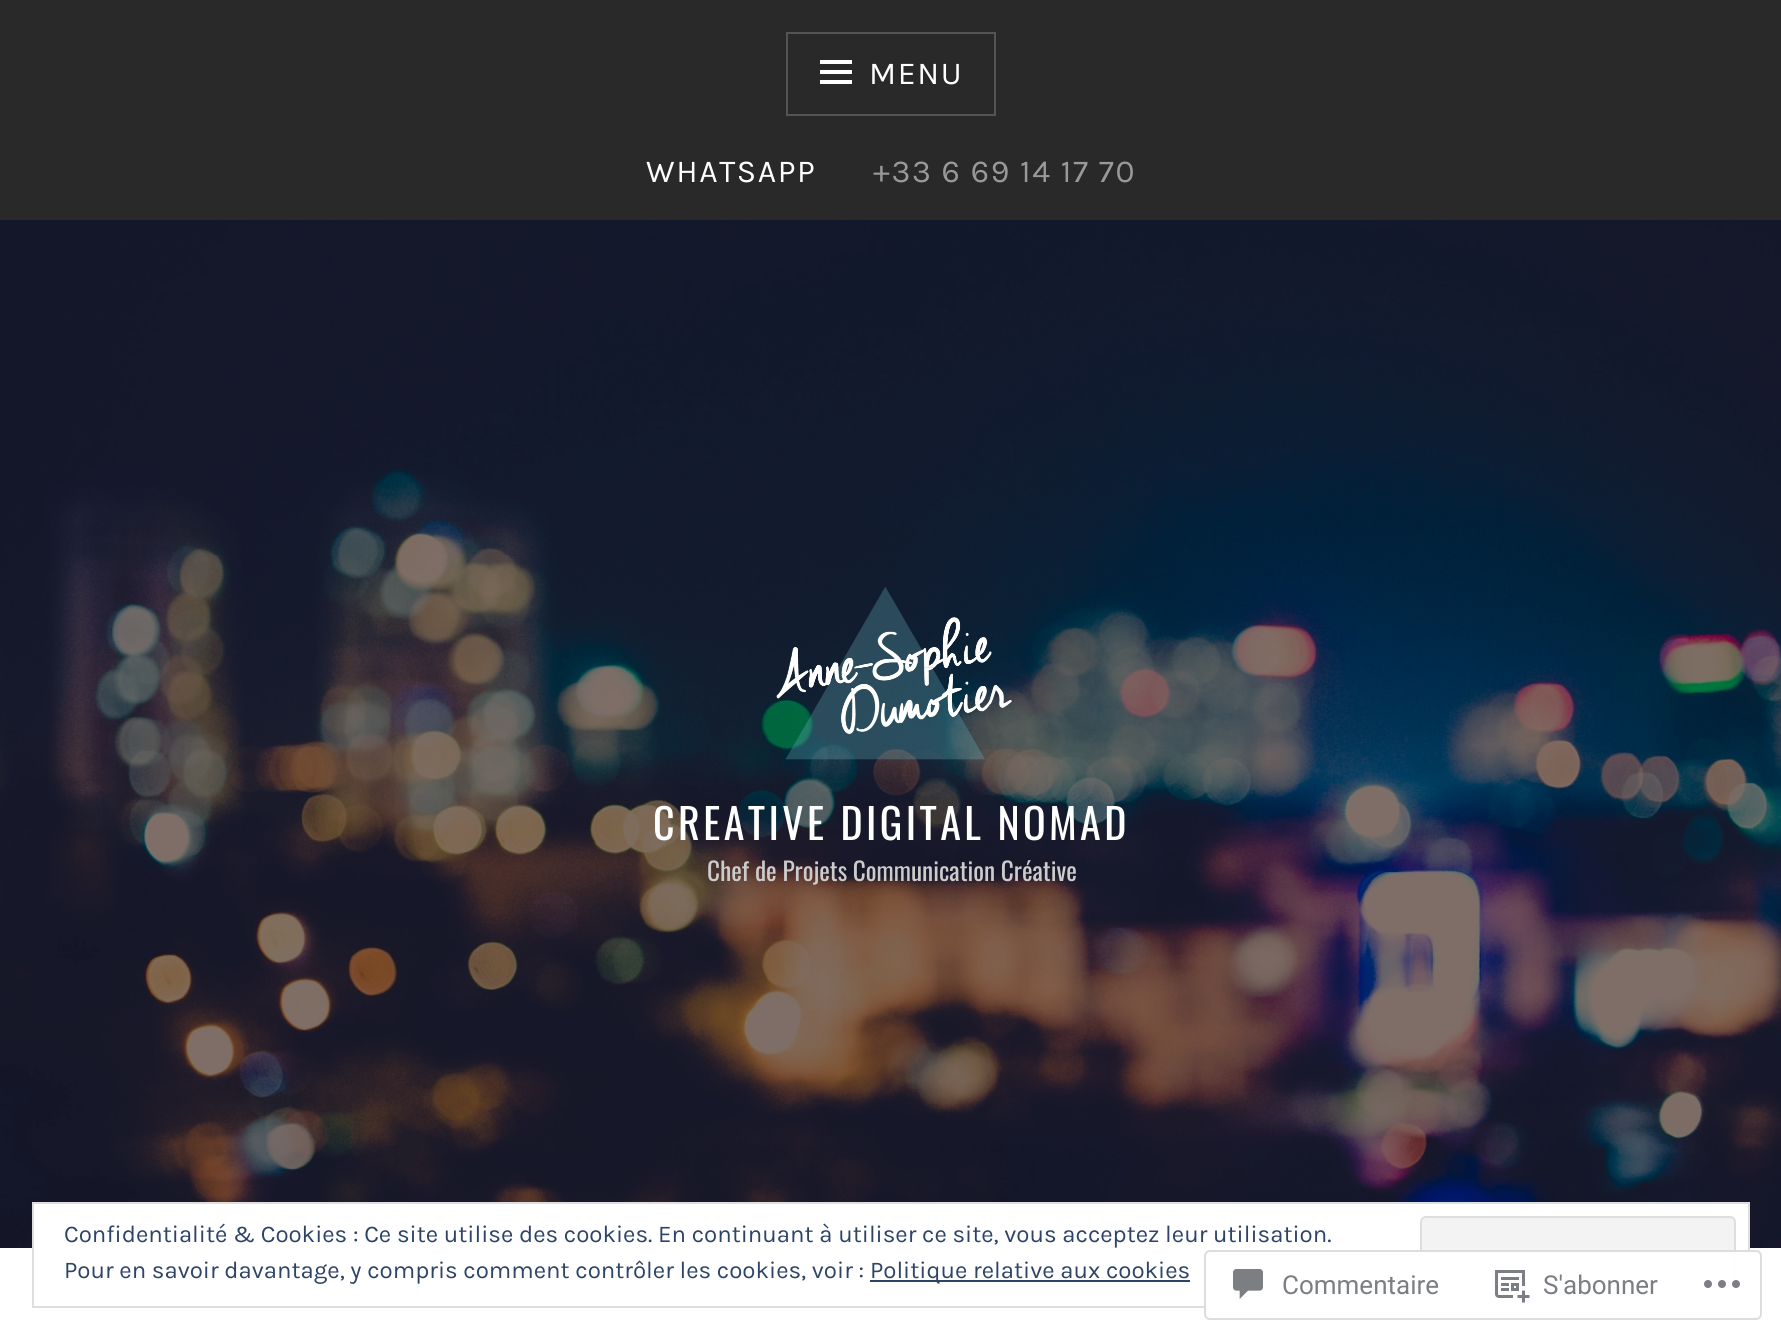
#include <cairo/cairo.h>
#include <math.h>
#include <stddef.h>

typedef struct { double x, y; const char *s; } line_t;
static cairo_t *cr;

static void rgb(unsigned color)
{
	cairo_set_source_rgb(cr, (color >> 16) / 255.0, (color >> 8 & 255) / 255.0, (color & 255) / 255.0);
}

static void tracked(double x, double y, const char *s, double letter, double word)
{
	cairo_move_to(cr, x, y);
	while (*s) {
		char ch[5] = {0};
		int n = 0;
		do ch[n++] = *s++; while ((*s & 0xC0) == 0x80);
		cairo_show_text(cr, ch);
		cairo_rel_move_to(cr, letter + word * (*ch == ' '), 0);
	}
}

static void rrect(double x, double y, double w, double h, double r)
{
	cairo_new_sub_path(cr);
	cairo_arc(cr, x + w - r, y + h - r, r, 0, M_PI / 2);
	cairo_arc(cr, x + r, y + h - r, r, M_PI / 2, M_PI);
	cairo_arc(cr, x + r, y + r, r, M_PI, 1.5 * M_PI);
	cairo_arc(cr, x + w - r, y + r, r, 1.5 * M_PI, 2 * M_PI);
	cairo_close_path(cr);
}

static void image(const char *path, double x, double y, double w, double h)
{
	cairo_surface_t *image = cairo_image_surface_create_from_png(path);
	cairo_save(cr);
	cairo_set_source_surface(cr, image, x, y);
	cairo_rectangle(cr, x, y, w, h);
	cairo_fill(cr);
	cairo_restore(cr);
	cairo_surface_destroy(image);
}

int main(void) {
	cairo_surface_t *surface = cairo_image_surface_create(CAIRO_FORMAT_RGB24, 1781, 1339);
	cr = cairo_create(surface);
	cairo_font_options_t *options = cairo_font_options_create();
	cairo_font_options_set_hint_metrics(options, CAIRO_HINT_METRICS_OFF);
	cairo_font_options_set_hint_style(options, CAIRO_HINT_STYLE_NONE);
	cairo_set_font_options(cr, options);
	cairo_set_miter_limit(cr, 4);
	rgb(0xffffff);
	cairo_paint(cr);
	rgb(0x29292a);
	cairo_rectangle(cr, 0, 0, 1781, 220);
	cairo_fill(cr);
	cairo_rectangle(cr, 787, 33, 208, 82);
	rgb(0x545455);
	cairo_stroke(cr);
	image("img/1.png", 820, 60, 32, 24);
	image("img/2.png", 0, 220, 1781, 1028);
	image("img/3.png", 776, 586, 236, 174);
	rgb(0xffffff);
	cairo_rectangle(cr, 34, 1204, 1714, 44);
	cairo_fill(cr);
	cairo_rectangle(cr, 33, 1203, 1716, 104);
	rgb(0xdedede);
	cairo_stroke(cr);
	rgb(0xf3f3f3);
	rrect(1421, 1217, 314, 76, 5);
	cairo_fill_preserve(cr);
	rgb(0xdedede);
	cairo_stroke(cr);
	rgb(0x2e4467);
	cairo_rectangle(cr, 870, 1280, 320, 2);
	cairo_fill(cr);
	cairo_set_source_rgba(cr, 1, 1, 1, 0.98);
	rrect(1204, 1250, 558, 70, 6);
	cairo_fill(cr);
	rrect(1205, 1251, 556, 68, 5);
	cairo_set_source_rgba(cr, 0.863, 0.863, 0.871, 0.98);
	cairo_stroke(cr);
	image("img/4.png", 1233, 1269, 30, 30);
	image("img/5.png", 1495, 1270, 35, 33);
	image("img/6.png", 1704, 1280, 36, 8);
	cairo_select_font_face(cr, "Karla", CAIRO_FONT_SLANT_NORMAL, CAIRO_FONT_WEIGHT_NORMAL);
	cairo_set_font_size(cr, 32);
	rgb(0xffffff);
	tracked(869, 84, "MENU", 1.6, 0);
	tracked(646, 182, "WHATSAPP", 1.6, 0);
	rgb(0x999999);
	tracked(873, 182, "+33 6 69 14 17 70", 1.6, 0);
	cairo_select_font_face(cr, "Oswald", CAIRO_FONT_SLANT_NORMAL, CAIRO_FONT_WEIGHT_NORMAL);
	cairo_set_font_size(cr, 42);
	rgb(0xffffff);
	tracked(653, 840, "CREATIVE DIGITAL NOMAD", 3.4, 0);
	cairo_set_font_size(cr, 25.25);
	rgb(0xcccccc);
	cairo_move_to(cr, 707, 881);
	cairo_show_text(cr, "Chef de Projets Communication Créative");
	cairo_select_font_face(cr, "Karla", CAIRO_FONT_SLANT_NORMAL, CAIRO_FONT_WEIGHT_NORMAL);
	cairo_set_font_size(cr, 24);
	rgb(0x2e4467);
	{
		static const line_t items[] = {
			{64, 1242, "Confidentialité & Cookies : Ce site utilise des cookies. En continuant à utiliser ce site, vous acceptez leur utilisation."},
			{64, 1278, "Pour en savoir davantage, y compris comment contrôler les cookies, voir :"},
			{870, 1278, "Politique relative aux cookies"},
		};
		for (size_t i = 0; i < sizeof items / sizeof *items; i++) {
			cairo_move_to(cr, items[i].x, items[i].y);
			cairo_show_text(cr, items[i].s);
		}
	}
	cairo_select_font_face(cr, "Roboto", CAIRO_FONT_SLANT_NORMAL, CAIRO_FONT_WEIGHT_NORMAL);
	cairo_set_font_size(cr, 26);
	rgb(0x7b7f84);
	cairo_move_to(cr, 1282, 1294);
	cairo_show_text(cr, "Commentaire");
	cairo_move_to(cr, 1543, 1294);
	cairo_show_text(cr, "S'abonner");
	cairo_surface_write_to_png(surface, "page.png");
	cairo_font_options_destroy(options);
	cairo_destroy(cr);
	cairo_surface_destroy(surface);
	return 0;
}
